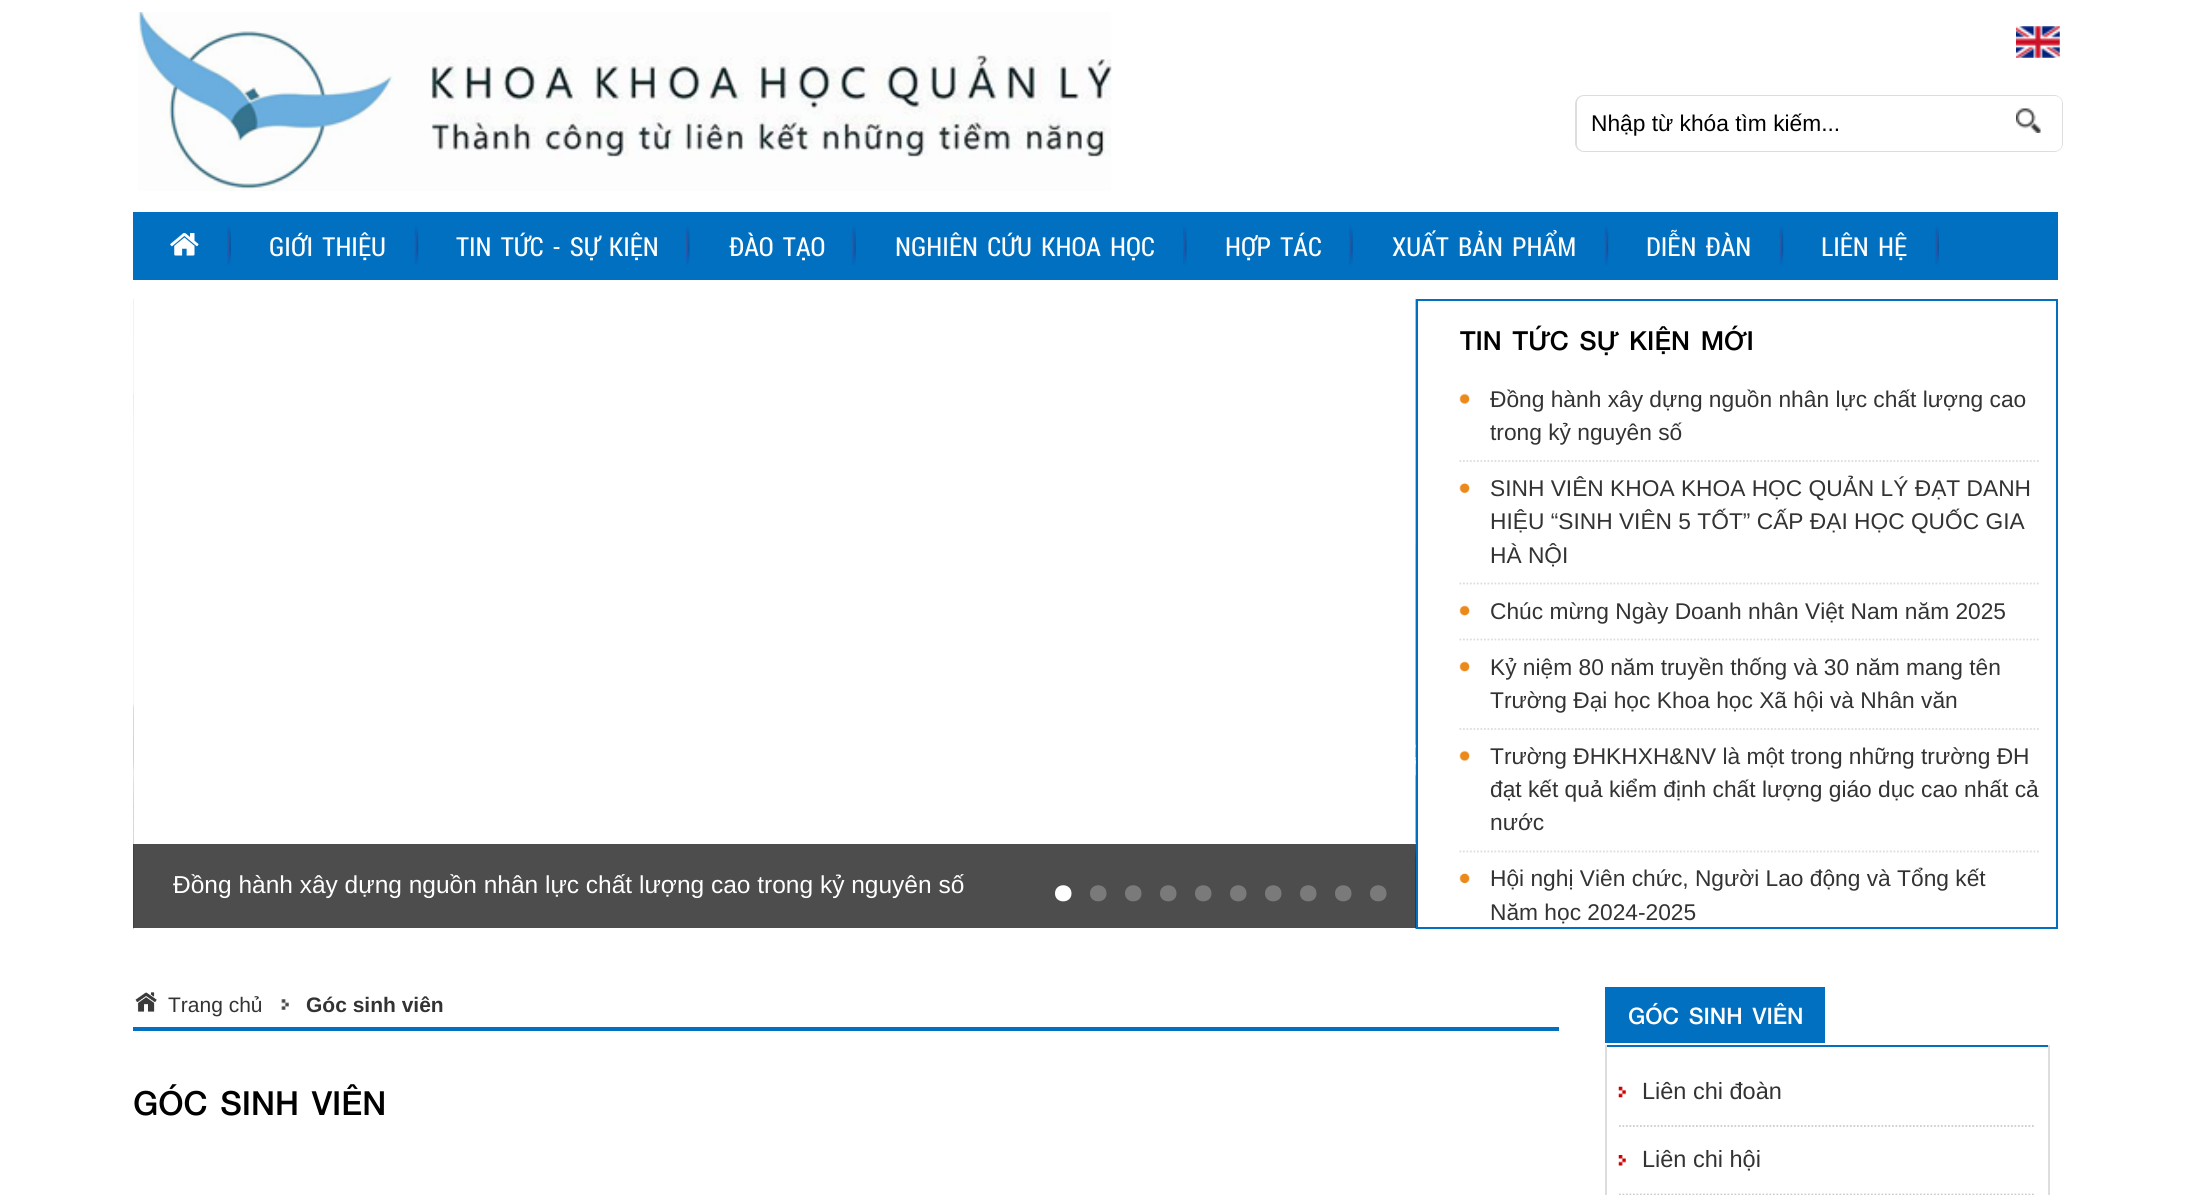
#include <cairo/cairo.h>
#include <math.h>
#include <stddef.h>

typedef struct { double x, y; const char *s; } line_t;
typedef struct { double x, y, w, h; unsigned color; } box_t;
static cairo_t *cr;

static void rgb(unsigned color)
{
	cairo_set_source_rgb(cr, (color >> 16) / 255.0, (color >> 8 & 255) / 255.0, (color & 255) / 255.0);
}

static void tracked(double x, double y, const char *s, double letter, double word)
{
	cairo_move_to(cr, x, y);
	while (*s) {
		char ch[5] = {0};
		int n = 0;
		do ch[n++] = *s++; while ((*s & 0xC0) == 0x80);
		cairo_show_text(cr, ch);
		cairo_rel_move_to(cr, letter + word * (*ch == ' '), 0);
	}
}

static void rrect(double x, double y, double w, double h, double r)
{
	cairo_new_sub_path(cr);
	cairo_arc(cr, x + w - r, y + h - r, r, 0, M_PI / 2);
	cairo_arc(cr, x + r, y + h - r, r, M_PI / 2, M_PI);
	cairo_arc(cr, x + r, y + r, r, M_PI, 1.5 * M_PI);
	cairo_arc(cr, x + w - r, y + r, r, 1.5 * M_PI, 2 * M_PI);
	cairo_close_path(cr);
}

static void image(const char *path, double x, double y, double w, double h)
{
	cairo_surface_t *image = cairo_image_surface_create_from_png(path);
	cairo_save(cr);
	cairo_set_source_surface(cr, image, x, y);
	cairo_rectangle(cr, x, y, w, h);
	cairo_fill(cr);
	cairo_restore(cr);
	cairo_surface_destroy(image);
}

int main(void) {
	cairo_surface_t *surface = cairo_image_surface_create(CAIRO_FORMAT_RGB24, 2190, 1195);
	cr = cairo_create(surface);
	cairo_font_options_t *options = cairo_font_options_create();
	cairo_font_options_set_hint_metrics(options, CAIRO_HINT_METRICS_OFF);
	cairo_font_options_set_hint_style(options, CAIRO_HINT_STYLE_NONE);
	cairo_set_font_options(cr, options);
	cairo_set_miter_limit(cr, 4);
	rgb(0xffffff);
	cairo_paint(cr);
	image("img/1.png", 138, 12, 974, 179);
	image("img/2.png", 2016, 26, 44, 32);
	rrect(1576, 96, 486, 55, 8);
	rgb(0xdddddd);
	cairo_stroke(cr);
	rgb(0xffffff);
	rrect(1578, 97, 483, 53, 6);
	cairo_fill_preserve(cr);
	cairo_stroke(cr);
	image("img/3.png", 2016, 108, 25, 25);
	rgb(0x0170c1);
	cairo_rectangle(cr, 133, 212, 1925, 68);
	cairo_fill(cr);
	image("img/4.png", 227, 226, 4, 39);
	image("img/5.png", 170, 233, 29, 23);
	image("img/6.png", 414, 226, 5, 39);
	image("img/7.png", 686, 226, 4, 39);
	image("img/8.png", 852, 226, 4, 39);
	image("img/7.png", 1183, 226, 4, 39);
	image("img/8.png", 1349, 226, 4, 39);
	image("img/9.png", 1604, 226, 5, 39);
	image("img/6.png", 1779, 226, 5, 39);
	image("img/4.png", 1935, 226, 4, 39);
	image("img/10.png", 133, 299, 1, 630);
	image("img/11.png", 1415, 299, 1, 630);
	cairo_set_source_rgba(cr, 0, 0, 0, 0.45);
	cairo_rectangle(cr, 133, 844, 1283, 84);
	cairo_fill(cr);
	cairo_rectangle(cr, 133, 844, 1283, 84);
	cairo_fill(cr);
	rgb(0xffffff);
	cairo_new_path(cr);
	cairo_move_to(cr, 1071.5, 893.5);
	cairo_curve_to(cr, 1071.5, 882.5, 1055, 882.5, 1055, 893.5);
	cairo_curve_to(cr, 1055, 904, 1071.5, 904, 1071.5, 893.5);
	cairo_close_path(cr);
	cairo_fill(cr);
	rgb(0x7a7a7a);
	cairo_new_path(cr);
	cairo_move_to(cr, 1106.5, 893.5);
	cairo_curve_to(cr, 1106.5, 882.5, 1090, 882.5, 1090, 893.5);
	cairo_curve_to(cr, 1090, 904, 1106.5, 904, 1106.5, 893.5);
	cairo_close_path(cr);
	cairo_move_to(cr, 1141.5, 893.5);
	cairo_curve_to(cr, 1141.5, 882.5, 1125, 882.5, 1125, 893.5);
	cairo_curve_to(cr, 1125, 904, 1141.5, 904, 1141.5, 893.5);
	cairo_close_path(cr);
	cairo_fill(cr);
	cairo_new_path(cr);
	cairo_move_to(cr, 1176.5, 893.5);
	cairo_curve_to(cr, 1176.5, 882.5, 1160, 882.5, 1160, 893.5);
	cairo_curve_to(cr, 1160, 904, 1176.5, 904, 1176.5, 893.5);
	cairo_close_path(cr);
	cairo_move_to(cr, 1211.5, 893.5);
	cairo_curve_to(cr, 1211.5, 882.5, 1195, 882.5, 1195, 893.5);
	cairo_curve_to(cr, 1195, 904, 1211.5, 904, 1211.5, 893.5);
	cairo_close_path(cr);
	cairo_fill(cr);
	cairo_new_path(cr);
	cairo_move_to(cr, 1246.5, 893.5);
	cairo_curve_to(cr, 1246.5, 882.5, 1230, 882.5, 1230, 893.5);
	cairo_curve_to(cr, 1230, 904, 1246.5, 904, 1246.5, 893.5);
	cairo_close_path(cr);
	cairo_move_to(cr, 1281.5, 893.5);
	cairo_curve_to(cr, 1281.5, 882.5, 1265, 882.5, 1265, 893.5);
	cairo_curve_to(cr, 1265, 904, 1281.5, 904, 1281.5, 893.5);
	cairo_close_path(cr);
	cairo_fill(cr);
	cairo_new_path(cr);
	cairo_move_to(cr, 1316.5, 893.5);
	cairo_curve_to(cr, 1316.5, 882.5, 1300, 882.5, 1300, 893.5);
	cairo_curve_to(cr, 1300, 904, 1316.5, 904, 1316.5, 893.5);
	cairo_close_path(cr);
	cairo_move_to(cr, 1351.5, 893.5);
	cairo_curve_to(cr, 1351.5, 882.5, 1335, 882.5, 1335, 893.5);
	cairo_curve_to(cr, 1335, 904, 1351.5, 904, 1351.5, 893.5);
	cairo_close_path(cr);
	cairo_fill(cr);
	cairo_new_path(cr);
	cairo_move_to(cr, 1386.5, 893.5);
	cairo_curve_to(cr, 1386.5, 882.5, 1370, 882.5, 1370, 893.5);
	cairo_curve_to(cr, 1370, 904, 1386.5, 904, 1386.5, 893.5);
	cairo_close_path(cr);
	cairo_fill(cr);
	cairo_rectangle(cr, 1417, 300, 640, 628);
	rgb(0x0170c1);
	cairo_stroke(cr);
	image("img/12.png", 1459, 393, 11, 12);
	cairo_new_path(cr);
	cairo_move_to(cr, 1459.5, 461);
	cairo_line_to(cr, 2039, 461);
	rgb(0xdddddd);
	cairo_set_line_width(cr, 1.8);
	cairo_set_dash(cr, (double[]){1.75, 1.75}, 2, 0);
	cairo_stroke(cr);
	image("img/13.png", 1459, 483, 11, 11);
	cairo_new_path(cr);
	cairo_move_to(cr, 1459.5, 583.5);
	cairo_line_to(cr, 2039, 583.5);
	cairo_stroke(cr);
	image("img/14.png", 1459, 605, 11, 11);
	cairo_new_path(cr);
	cairo_move_to(cr, 1459.5, 639.5);
	cairo_line_to(cr, 2039, 639.5);
	cairo_stroke(cr);
	image("img/14.png", 1459, 661, 11, 11);
	cairo_new_path(cr);
	cairo_move_to(cr, 1459.5, 729);
	cairo_line_to(cr, 2039, 729);
	cairo_stroke(cr);
	image("img/12.png", 1459, 750, 11, 12);
	cairo_new_path(cr);
	cairo_move_to(cr, 1459.5, 851.5);
	cairo_line_to(cr, 2039, 851.5);
	cairo_stroke(cr);
	image("img/15.png", 1459, 873, 11, 11);
	rgb(0x0170c1);
	cairo_rectangle(cr, 133, 1027, 1426, 4);
	cairo_fill(cr);
	image("img/16.png", 135, 992, 22, 20);
	image("img/17.png", 281, 999, 8, 11);
	{
		static const box_t items[] = {
			{1605, 987, 220, 56, 0x0170c1},
			{1605, 1045, 444, 2, 0x0170c1},
			{2048, 1045, 2, 150, 0xdddddd},
			{1605, 1045, 2, 150, 0xdddddd},
		};
		for (size_t i = 0; i < sizeof items / sizeof *items; i++) {
			rgb(items[i].color);
			cairo_rectangle(cr, items[i].x, items[i].y, items[i].w, items[i].h);
			cairo_fill(cr);
		}
	}
	image("img/18.png", 1618, 1086, 8, 12);
	cairo_new_path(cr);
	cairo_move_to(cr, 1619, 1126);
	cairo_line_to(cr, 2035, 1126);
	rgb(0xcccccc);
	cairo_stroke(cr);
	image("img/19.png", 1618, 1155, 8, 11);
	cairo_new_path(cr);
	cairo_move_to(cr, 1619, 1194.5);
	cairo_line_to(cr, 2035, 1194.5);
	cairo_stroke(cr);
	cairo_select_font_face(cr, "Liberation Sans", CAIRO_FONT_SLANT_NORMAL, CAIRO_FONT_WEIGHT_NORMAL);
	cairo_set_font_size(cr, 22.75);
	rgb(0x000000);
	cairo_move_to(cr, 1591, 131);
	cairo_show_text(cr, "Nhập từ khóa tìm kiếm...");
	cairo_select_font_face(cr, "Roboto Condensed", CAIRO_FONT_SLANT_NORMAL, CAIRO_FONT_WEIGHT_NORMAL);
	cairo_set_font_size(cr, 26.25);
	rgb(0xffffff);
	{
		static const line_t items[] = {
			{269, 256, "GIỚI THIỆU"},
			{456, 256, "TIN TỨC - SỰ KIỆN"},
			{729, 256, "ĐÀO TẠO"},
			{895, 256, "NGHIÊN CỨU KHOA HỌC"},
			{1225, 256, "HỢP TÁC"},
			{1392, 256, "XUẤT BẢN PHẨM"},
			{1646, 256, "DIỄN ĐÀN"},
			{1821, 256, "LIÊN HỆ"},
		};
		for (size_t i = 0; i < sizeof items / sizeof *items; i++) {
			tracked(items[i].x, items[i].y, items[i].s, 0, 3.5);
		}
	}
	cairo_select_font_face(cr, "Liberation Sans", CAIRO_FONT_SLANT_NORMAL, CAIRO_FONT_WEIGHT_NORMAL);
	cairo_set_font_size(cr, 24.5);
	cairo_move_to(cr, 173, 893);
	cairo_show_text(cr, "Đồng hành xây dựng nguồn nhân lực chất lượng cao trong kỷ nguyên số");
	cairo_select_font_face(cr, "Helvetica Neue Medium", CAIRO_FONT_SLANT_NORMAL, CAIRO_FONT_WEIGHT_NORMAL);
	cairo_set_font_size(cr, 26.25);
	rgb(0x000000);
	tracked(1460, 350, "TIN TỨC SỰ KIỆN MỚI", 0, 3.5);
	cairo_select_font_face(cr, "Liberation Sans", CAIRO_FONT_SLANT_NORMAL, CAIRO_FONT_WEIGHT_NORMAL);
	cairo_set_font_size(cr, 22.75);
	rgb(0x333333);
	{
		static const line_t items[] = {
			{1490, 407, "Đồng hành xây dựng nguồn nhân lực chất lượng cao"},
			{1490, 440, "trong kỷ nguyên số"},
			{1490, 496, "SINH VIÊN KHOA KHOA HỌC QUẢN LÝ ĐẠT DANH"},
			{1490, 529, "HIỆU “SINH VIÊN 5 TỐT” CẤP ĐẠI HỌC QUỐC GIA"},
			{1490, 563, "HÀ NỘI"},
			{1490, 619, "Chúc mừng Ngày Doanh nhân Việt Nam năm 2025"},
			{1490, 675, "Kỷ niệm 80 năm truyền thống và 30 năm mang tên"},
			{1490, 708, "Trường Đại học Khoa học Xã hội và Nhân văn"},
			{1490, 764, "Trường ĐHKHXH&NV là một trong những trường ĐH"},
			{1490, 797, "đạt kết quả kiểm định chất lượng giáo dục cao nhất cả"},
			{1490, 830, "nước"},
			{1490, 886, "Hội nghị Viên chức, Người Lao động và Tổng kết"},
			{1490, 920, "Năm học 2024-2025"},
		};
		for (size_t i = 0; i < sizeof items / sizeof *items; i++) {
			cairo_move_to(cr, items[i].x, items[i].y);
			cairo_show_text(cr, items[i].s);
		}
	}
	cairo_set_font_size(cr, 21);
	cairo_move_to(cr, 168, 1012);
	cairo_show_text(cr, "Trang chủ");
	cairo_select_font_face(cr, "Liberation Sans", CAIRO_FONT_SLANT_NORMAL, CAIRO_FONT_WEIGHT_BOLD);
	cairo_move_to(cr, 306, 1012);
	cairo_show_text(cr, "Góc sinh viên");
	cairo_select_font_face(cr, "Helvetica Neue Medium", CAIRO_FONT_SLANT_NORMAL, CAIRO_FONT_WEIGHT_NORMAL);
	cairo_set_font_size(cr, 33.25);
	rgb(0x000000);
	tracked(133, 1115, "GÓC SINH VIÊN", 0, 3.5);
	cairo_set_font_size(cr, 22.75);
	rgb(0xffffff);
	tracked(1628, 1024, "GÓC SINH VIÊN", 0, 3.5);
	cairo_select_font_face(cr, "Liberation Sans", CAIRO_FONT_SLANT_NORMAL, CAIRO_FONT_WEIGHT_NORMAL);
	cairo_set_font_size(cr, 23.5);
	rgb(0x333333);
	cairo_move_to(cr, 1642, 1099);
	cairo_show_text(cr, "Liên chi đoàn");
	cairo_move_to(cr, 1642, 1167);
	cairo_show_text(cr, "Liên chi hội");
	cairo_surface_write_to_png(surface, "page.png");
	cairo_font_options_destroy(options);
	cairo_destroy(cr);
	cairo_surface_destroy(surface);
	return 0;
}
